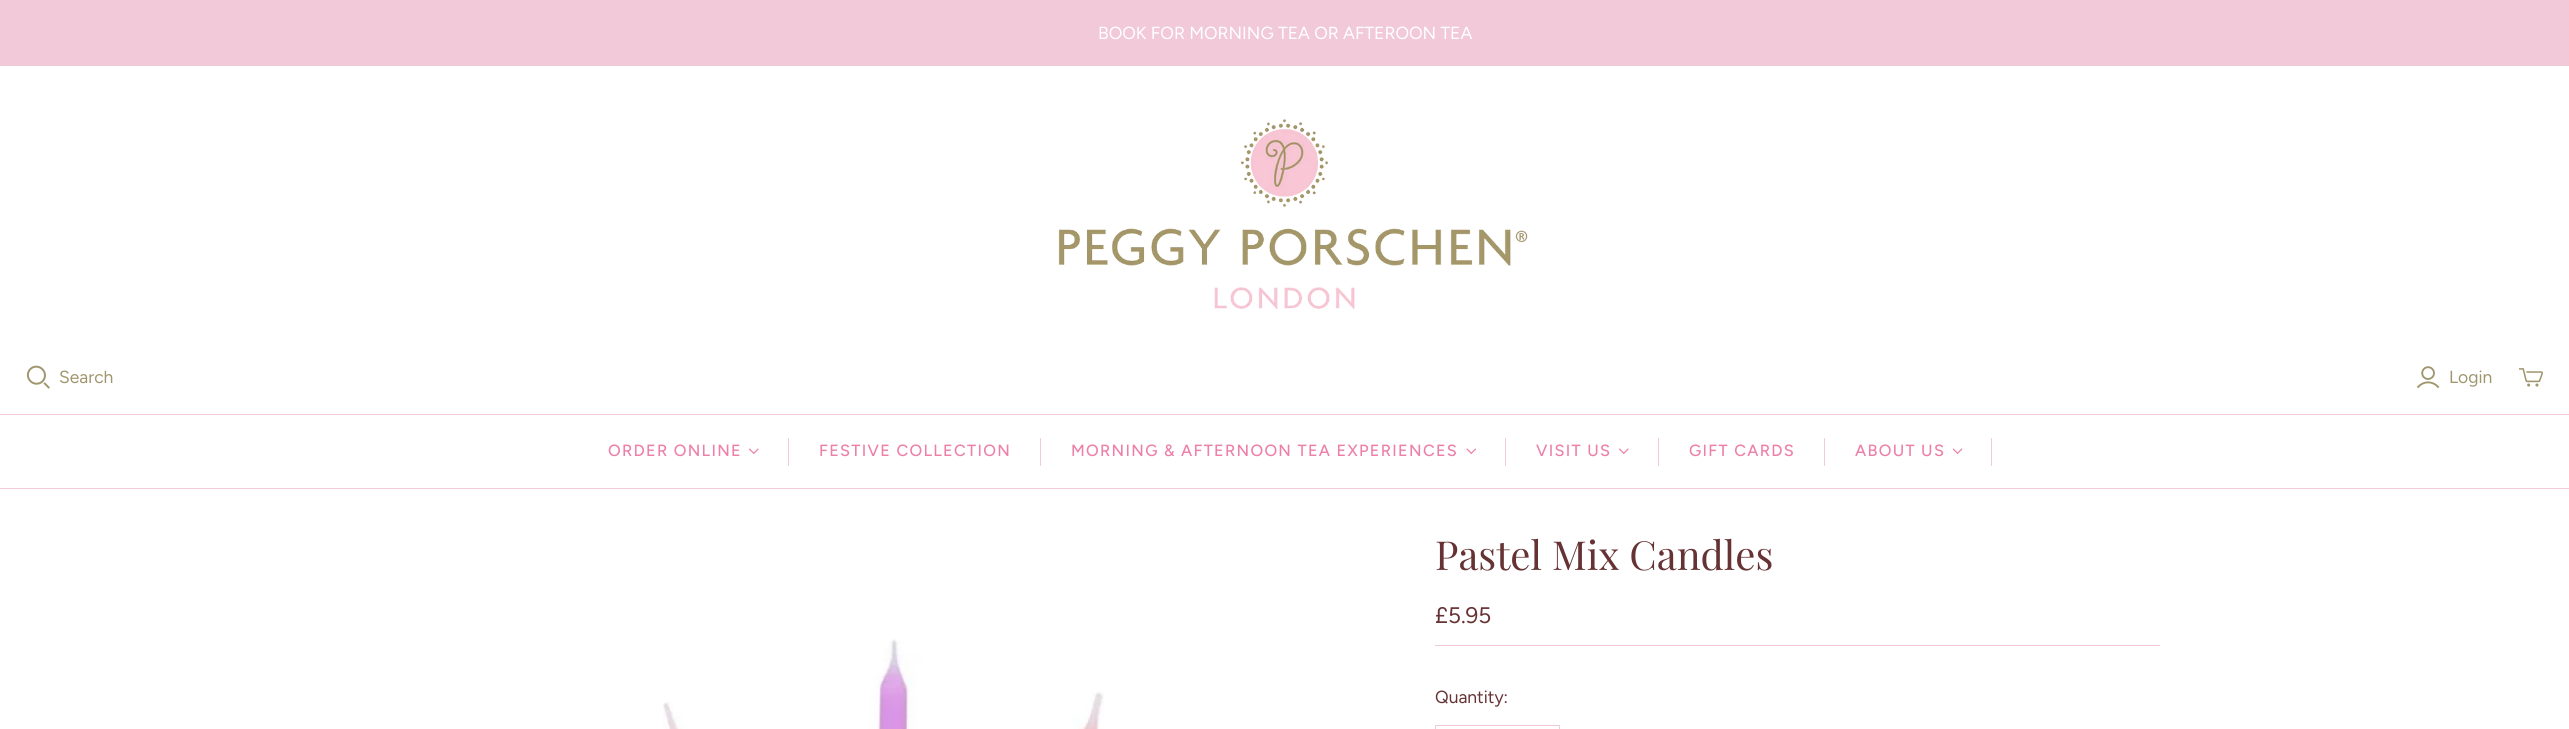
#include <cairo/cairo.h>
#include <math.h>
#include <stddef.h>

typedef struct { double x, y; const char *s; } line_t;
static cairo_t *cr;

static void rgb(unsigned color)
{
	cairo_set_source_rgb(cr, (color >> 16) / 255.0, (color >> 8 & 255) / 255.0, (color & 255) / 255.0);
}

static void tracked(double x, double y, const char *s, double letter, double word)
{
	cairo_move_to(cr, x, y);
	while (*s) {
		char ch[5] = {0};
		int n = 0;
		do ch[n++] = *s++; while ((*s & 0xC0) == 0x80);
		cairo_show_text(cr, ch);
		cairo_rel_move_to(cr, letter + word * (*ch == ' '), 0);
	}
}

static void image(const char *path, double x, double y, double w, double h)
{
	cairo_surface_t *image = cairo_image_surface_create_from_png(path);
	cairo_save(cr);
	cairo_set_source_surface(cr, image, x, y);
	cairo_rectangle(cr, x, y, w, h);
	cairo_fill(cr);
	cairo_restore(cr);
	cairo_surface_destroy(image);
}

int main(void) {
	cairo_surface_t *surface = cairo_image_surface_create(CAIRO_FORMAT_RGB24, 2569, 729);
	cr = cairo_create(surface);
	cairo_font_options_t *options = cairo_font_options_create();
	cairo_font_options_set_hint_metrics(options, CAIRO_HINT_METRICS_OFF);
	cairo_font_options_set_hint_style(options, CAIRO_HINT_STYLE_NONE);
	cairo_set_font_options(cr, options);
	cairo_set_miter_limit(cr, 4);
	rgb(0xffffff);
	cairo_paint(cr);
	rgb(0xf1c9d9);
	cairo_rectangle(cr, 0, 0, 2569, 66);
	cairo_fill(cr);
	image("img/1.png", 1058, 119, 470, 190);
	image("img/2.png", 26, 365, 24, 24);
	image("img/3.png", 2416, 366, 24, 23);
	image("img/4.png", 2519, 368, 24, 19);
	cairo_rectangle(cr, 0, 414, 2569, 1);
	cairo_fill(cr);
	cairo_rectangle(cr, 0, 488, 2569, 1);
	cairo_fill(cr);
	image("img/5.png", 749, 448, 10, 7);
	cairo_rectangle(cr, 788, 438, 1, 28);
	cairo_fill(cr);
	cairo_rectangle(cr, 1040, 438, 1, 28);
	cairo_fill(cr);
	image("img/6.png", 1466, 448, 10, 7);
	cairo_rectangle(cr, 1505, 438, 1, 28);
	cairo_fill(cr);
	image("img/5.png", 1619, 448, 10, 7);
	cairo_rectangle(cr, 1658, 438, 1, 28);
	cairo_fill(cr);
	cairo_rectangle(cr, 1824, 438, 1, 28);
	cairo_fill(cr);
	image("img/7.png", 1953, 448, 10, 7);
	cairo_rectangle(cr, 1991, 438, 1, 28);
	cairo_fill(cr);
	image("img/8.png", 663, 639, 441, 90);
	cairo_rectangle(cr, 1435, 645, 725, 1);
	cairo_fill(cr);
	cairo_rectangle(cr, 1435.5, 725.5, 124, 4);
	cairo_set_line_width(cr, 1);
	cairo_stroke(cr);
	cairo_select_font_face(cr, "Figtree", CAIRO_FONT_SLANT_NORMAL, CAIRO_FONT_WEIGHT_NORMAL);
	cairo_set_font_size(cr, 17.5);
	rgb(0xffffff);
	cairo_move_to(cr, 1098, 39);
	cairo_show_text(cr, "BOOK FOR MORNING TEA OR AFTEROON TEA");
	rgb(0xa0966e);
	cairo_move_to(cr, 59, 383);
	cairo_show_text(cr, "Search");
	cairo_move_to(cr, 2449, 383);
	cairo_show_text(cr, "Login");
	cairo_select_font_face(cr, "Figtree Medium", CAIRO_FONT_SLANT_NORMAL, CAIRO_FONT_WEIGHT_NORMAL);
	cairo_set_font_size(cr, 16.25);
	rgb(0xed80a8);
	{
		static const line_t items[] = {
			{608, 456, "ORDER ONLINE"},
			{819, 456, "FESTIVE COLLECTION"},
			{1071, 456, "MORNING & AFTERNOON TEA EXPERIENCES"},
			{1536, 456, "VISIT US"},
			{1689, 456, "GIFT CARDS"},
			{1855, 456, "ABOUT US"},
		};
		for (size_t i = 0; i < sizeof items / sizeof *items; i++) {
			tracked(items[i].x, items[i].y, items[i].s, 1.3, 0);
		}
	}
	cairo_select_font_face(cr, "Playfair Display", CAIRO_FONT_SLANT_NORMAL, CAIRO_FONT_WEIGHT_NORMAL);
	cairo_set_font_size(cr, 40);
	rgb(0x663233);
	cairo_move_to(cr, 1435, 570);
	cairo_show_text(cr, "Pastel Mix Candles");
	cairo_select_font_face(cr, "Figtree", CAIRO_FONT_SLANT_NORMAL, CAIRO_FONT_WEIGHT_NORMAL);
	cairo_set_font_size(cr, 22.5);
	cairo_move_to(cr, 1435, 623);
	cairo_show_text(cr, "£5.95");
	cairo_set_font_size(cr, 17.5);
	cairo_move_to(cr, 1435, 703);
	cairo_show_text(cr, "Quantity:");
	cairo_surface_write_to_png(surface, "page.png");
	cairo_font_options_destroy(options);
	cairo_destroy(cr);
	cairo_surface_destroy(surface);
	return 0;
}
